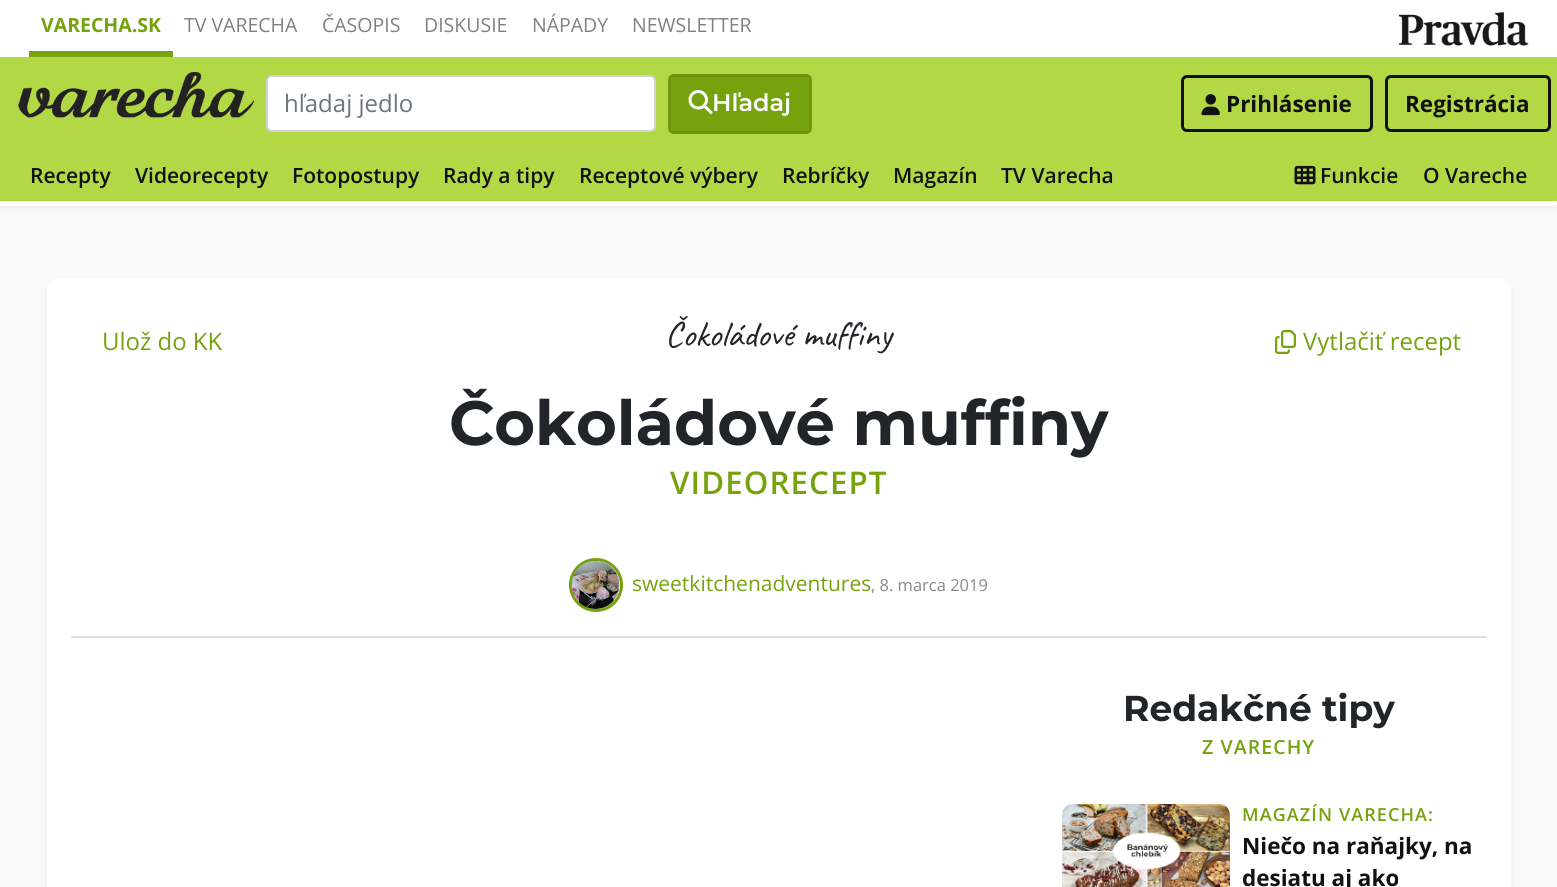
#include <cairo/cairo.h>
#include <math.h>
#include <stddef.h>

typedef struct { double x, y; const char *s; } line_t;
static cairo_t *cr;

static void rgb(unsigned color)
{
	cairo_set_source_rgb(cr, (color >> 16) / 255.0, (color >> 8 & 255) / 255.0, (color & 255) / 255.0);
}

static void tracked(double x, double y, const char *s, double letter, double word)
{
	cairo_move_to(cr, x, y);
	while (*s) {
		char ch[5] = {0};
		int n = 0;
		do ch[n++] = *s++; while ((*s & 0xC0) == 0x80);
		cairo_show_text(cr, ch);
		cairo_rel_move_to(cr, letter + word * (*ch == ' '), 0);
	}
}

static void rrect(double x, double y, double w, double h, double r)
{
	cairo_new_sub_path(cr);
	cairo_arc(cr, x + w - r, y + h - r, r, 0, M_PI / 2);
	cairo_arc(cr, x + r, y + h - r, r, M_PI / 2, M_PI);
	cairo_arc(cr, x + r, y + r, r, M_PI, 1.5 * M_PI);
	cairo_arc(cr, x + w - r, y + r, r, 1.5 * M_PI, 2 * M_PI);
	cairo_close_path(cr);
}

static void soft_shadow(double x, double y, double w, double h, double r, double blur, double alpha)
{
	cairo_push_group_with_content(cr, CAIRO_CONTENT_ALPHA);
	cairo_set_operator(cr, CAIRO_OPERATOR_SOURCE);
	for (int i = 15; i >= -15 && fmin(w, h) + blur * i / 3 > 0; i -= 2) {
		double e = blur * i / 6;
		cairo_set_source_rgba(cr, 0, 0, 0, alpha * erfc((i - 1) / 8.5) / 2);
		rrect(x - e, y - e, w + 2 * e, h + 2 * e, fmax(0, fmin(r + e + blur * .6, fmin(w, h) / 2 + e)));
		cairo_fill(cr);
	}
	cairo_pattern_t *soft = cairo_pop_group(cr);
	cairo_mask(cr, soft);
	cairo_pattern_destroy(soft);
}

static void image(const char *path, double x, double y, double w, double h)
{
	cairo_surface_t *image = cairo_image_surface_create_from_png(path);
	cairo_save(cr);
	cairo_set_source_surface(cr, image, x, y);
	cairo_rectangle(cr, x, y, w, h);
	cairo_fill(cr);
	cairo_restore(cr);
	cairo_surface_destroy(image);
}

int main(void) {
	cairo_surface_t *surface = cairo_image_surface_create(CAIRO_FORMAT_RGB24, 1557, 887);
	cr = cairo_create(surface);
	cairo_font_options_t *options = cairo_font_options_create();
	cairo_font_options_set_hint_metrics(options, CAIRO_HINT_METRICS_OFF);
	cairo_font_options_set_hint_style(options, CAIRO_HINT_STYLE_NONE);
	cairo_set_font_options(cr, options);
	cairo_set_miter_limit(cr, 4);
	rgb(0xfafafa);
	cairo_paint(cr);
	rgb(0xffffff);
	cairo_rectangle(cr, 0, 0, 1557, 57);
	cairo_fill(cr);
	rgb(0x76a20e);
	cairo_rectangle(cr, 29, 51, 144, 6);
	cairo_fill(cr);
	image("img/1.png", 1398, 12, 131, 34);
	rgb(0xcccccc);
	soft_shadow(0, 60, 1557, 149, 0, 3, 0.32);
	rgb(0xb3d846);
	cairo_rectangle(cr, 0, 57, 1557, 144);
	cairo_fill(cr);
	rgb(0xffffff);
	cairo_rectangle(cr, 0, 201, 1557, 5);
	cairo_fill(cr);
	image("img/2.png", 18, 72, 236, 46);
	rrect(267, 76, 388, 55, 5);
	cairo_fill_preserve(cr);
	rgb(0xced4da);
	cairo_stroke(cr);
	rgb(0x76a20e);
	rrect(669.5, 75.5, 141, 57, 4.5);
	cairo_fill_preserve(cr);
	rgb(0x6d940a);
	cairo_set_line_width(cr, 3);
	cairo_stroke(cr);
	image("img/3.png", 688, 90, 25, 24);
	rrect(1182.5, 76.5, 189, 54, 4.5);
	rgb(0x111111);
	cairo_stroke(cr);
	image("img/4.png", 1201, 94, 19, 22);
	rrect(1386.5, 76.5, 163, 54, 4.5);
	cairo_stroke(cr);
	image("img/5.png", 1294, 165, 22, 20);
	rgb(0xcccccc);
	soft_shadow(47, 281, 1464, 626, 11, 3, 0.32);
	rgb(0xffffff);
	rrect(47, 278, 1464, 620, 11);
	cairo_fill(cr);
	rgb(0xdee2e6);
	cairo_rectangle(cr, 71, 636, 1416, 2);
	cairo_fill(cr);
	image("img/6.png", 1275, 330, 21, 24);
	cairo_arc(cr, 596, 585, 25.5, 0, 2 * M_PI);
	rgb(0x76a20e);
	cairo_stroke(cr);
	image("img/7.png", 571, 561, 49, 48);
	image("img/8.png", 1062, 804, 168, 83);
	cairo_select_font_face(cr, "Open Sans", CAIRO_FONT_SLANT_NORMAL, CAIRO_FONT_WEIGHT_BOLD);
	cairo_set_font_size(cr, 19.5);
	cairo_move_to(cr, 41, 32);
	cairo_show_text(cr, "VARECHA.SK");
	cairo_select_font_face(cr, "Open Sans", CAIRO_FONT_SLANT_NORMAL, CAIRO_FONT_WEIGHT_NORMAL);
	rgb(0x808080);
	{
		static const line_t items[] = {
			{184, 32, "TV VARECHA"},
			{322, 32, "ČASOPIS"},
			{424, 32, "DISKUSIE"},
			{532, 32, "NÁPADY"},
			{632, 32, "NEWSLETTER"},
		};
		for (size_t i = 0; i < sizeof items / sizeof *items; i++) {
			cairo_move_to(cr, items[i].x, items[i].y);
			cairo_show_text(cr, items[i].s);
		}
	}
	cairo_set_font_size(cr, 24);
	rgb(0x6c757d);
	cairo_move_to(cr, 284, 112);
	cairo_show_text(cr, "hľadaj jedlo");
	cairo_select_font_face(cr, "Montserrat SemiBold", CAIRO_FONT_SLANT_NORMAL, CAIRO_FONT_WEIGHT_NORMAL);
	rgb(0xffffff);
	cairo_move_to(cr, 712, 111);
	cairo_show_text(cr, "Hľadaj");
	cairo_select_font_face(cr, "Open Sans", CAIRO_FONT_SLANT_NORMAL, CAIRO_FONT_WEIGHT_BOLD);
	cairo_set_font_size(cr, 22.5);
	rgb(0x111111);
	cairo_move_to(cr, 1226, 112);
	cairo_show_text(cr, "Prihlásenie");
	cairo_move_to(cr, 1405, 112);
	cairo_show_text(cr, "Registrácia");
	cairo_select_font_face(cr, "Open Sans SemiBold", CAIRO_FONT_SLANT_NORMAL, CAIRO_FONT_WEIGHT_NORMAL);
	cairo_set_font_size(cr, 21);
	{
		static const line_t items[] = {
			{30, 183, "Recepty"},
			{135, 183, "Videorecepty"},
			{292, 183, "Fotopostupy"},
			{443, 183, "Rady a tipy"},
			{579, 183, "Receptové výbery"},
			{782, 183, "Rebríčky"},
			{893, 183, "Magazín"},
			{1001, 183, "TV Varecha"},
			{1320, 183, "Funkcie"},
			{1423, 183, "O Vareche"},
		};
		for (size_t i = 0; i < sizeof items / sizeof *items; i++) {
			cairo_move_to(cr, items[i].x, items[i].y);
			cairo_show_text(cr, items[i].s);
		}
	}
	cairo_select_font_face(cr, "Open Sans", CAIRO_FONT_SLANT_NORMAL, CAIRO_FONT_WEIGHT_NORMAL);
	cairo_set_font_size(cr, 24);
	rgb(0x76a20e);
	cairo_move_to(cr, 102, 350);
	cairo_show_text(cr, "Ulož do KK");
	cairo_select_font_face(cr, "Caveat", CAIRO_FONT_SLANT_NORMAL, CAIRO_FONT_WEIGHT_NORMAL);
	cairo_set_font_size(cr, 36);
	rgb(0x212529);
	cairo_move_to(cr, 665, 346);
	cairo_show_text(cr, "Čokoládové muffiny");
	cairo_select_font_face(cr, "Open Sans", CAIRO_FONT_SLANT_NORMAL, CAIRO_FONT_WEIGHT_NORMAL);
	cairo_set_font_size(cr, 24);
	rgb(0x76a20e);
	cairo_move_to(cr, 1303, 350);
	cairo_show_text(cr, "Vytlačiť recept");
	cairo_select_font_face(cr, "Montserrat", CAIRO_FONT_SLANT_NORMAL, CAIRO_FONT_WEIGHT_BOLD);
	cairo_set_font_size(cr, 62.4);
	rgb(0x212529);
	cairo_move_to(cr, 449, 445);
	cairo_show_text(cr, "Čokoládové muffiny");
	cairo_select_font_face(cr, "Open Sans SemiBold", CAIRO_FONT_SLANT_NORMAL, CAIRO_FONT_WEIGHT_NORMAL);
	cairo_set_font_size(cr, 31.25);
	rgb(0x76a20e);
	tracked(670, 494, "VIDEORECEPT", 1.1, 0);
	cairo_select_font_face(cr, "Open Sans", CAIRO_FONT_SLANT_NORMAL, CAIRO_FONT_WEIGHT_NORMAL);
	cairo_set_font_size(cr, 21);
	cairo_move_to(cr, 632, 591);
	cairo_show_text(cr, "sweetkitchenadventures");
	cairo_set_font_size(cr, 16.5);
	rgb(0x888888);
	cairo_move_to(cr, 871, 591);
	cairo_show_text(cr, ", 8. marca 2019");
	cairo_select_font_face(cr, "Montserrat", CAIRO_FONT_SLANT_NORMAL, CAIRO_FONT_WEIGHT_BOLD);
	cairo_set_font_size(cr, 36);
	rgb(0x212529);
	cairo_move_to(cr, 1123, 721);
	cairo_show_text(cr, "Redakčné tipy");
	cairo_select_font_face(cr, "Open Sans SemiBold", CAIRO_FONT_SLANT_NORMAL, CAIRO_FONT_WEIGHT_NORMAL);
	cairo_set_font_size(cr, 19.5);
	rgb(0x76a20e);
	tracked(1202, 754, "Z VARECHY", 1.1, 0);
	cairo_set_font_size(cr, 18);
	tracked(1242, 821, "MAGAZÍN VARECHA:", 1.1, 0);
	cairo_select_font_face(cr, "Open Sans", CAIRO_FONT_SLANT_NORMAL, CAIRO_FONT_WEIGHT_BOLD);
	cairo_set_font_size(cr, 22.5);
	rgb(0x111111);
	cairo_move_to(cr, 1242, 854);
	cairo_show_text(cr, "Niečo na raňajky, na");
	cairo_move_to(cr, 1242, 886);
	cairo_show_text(cr, "desiatu aj ako");
	cairo_surface_write_to_png(surface, "page.png");
	cairo_font_options_destroy(options);
	cairo_destroy(cr);
	cairo_surface_destroy(surface);
	return 0;
}
